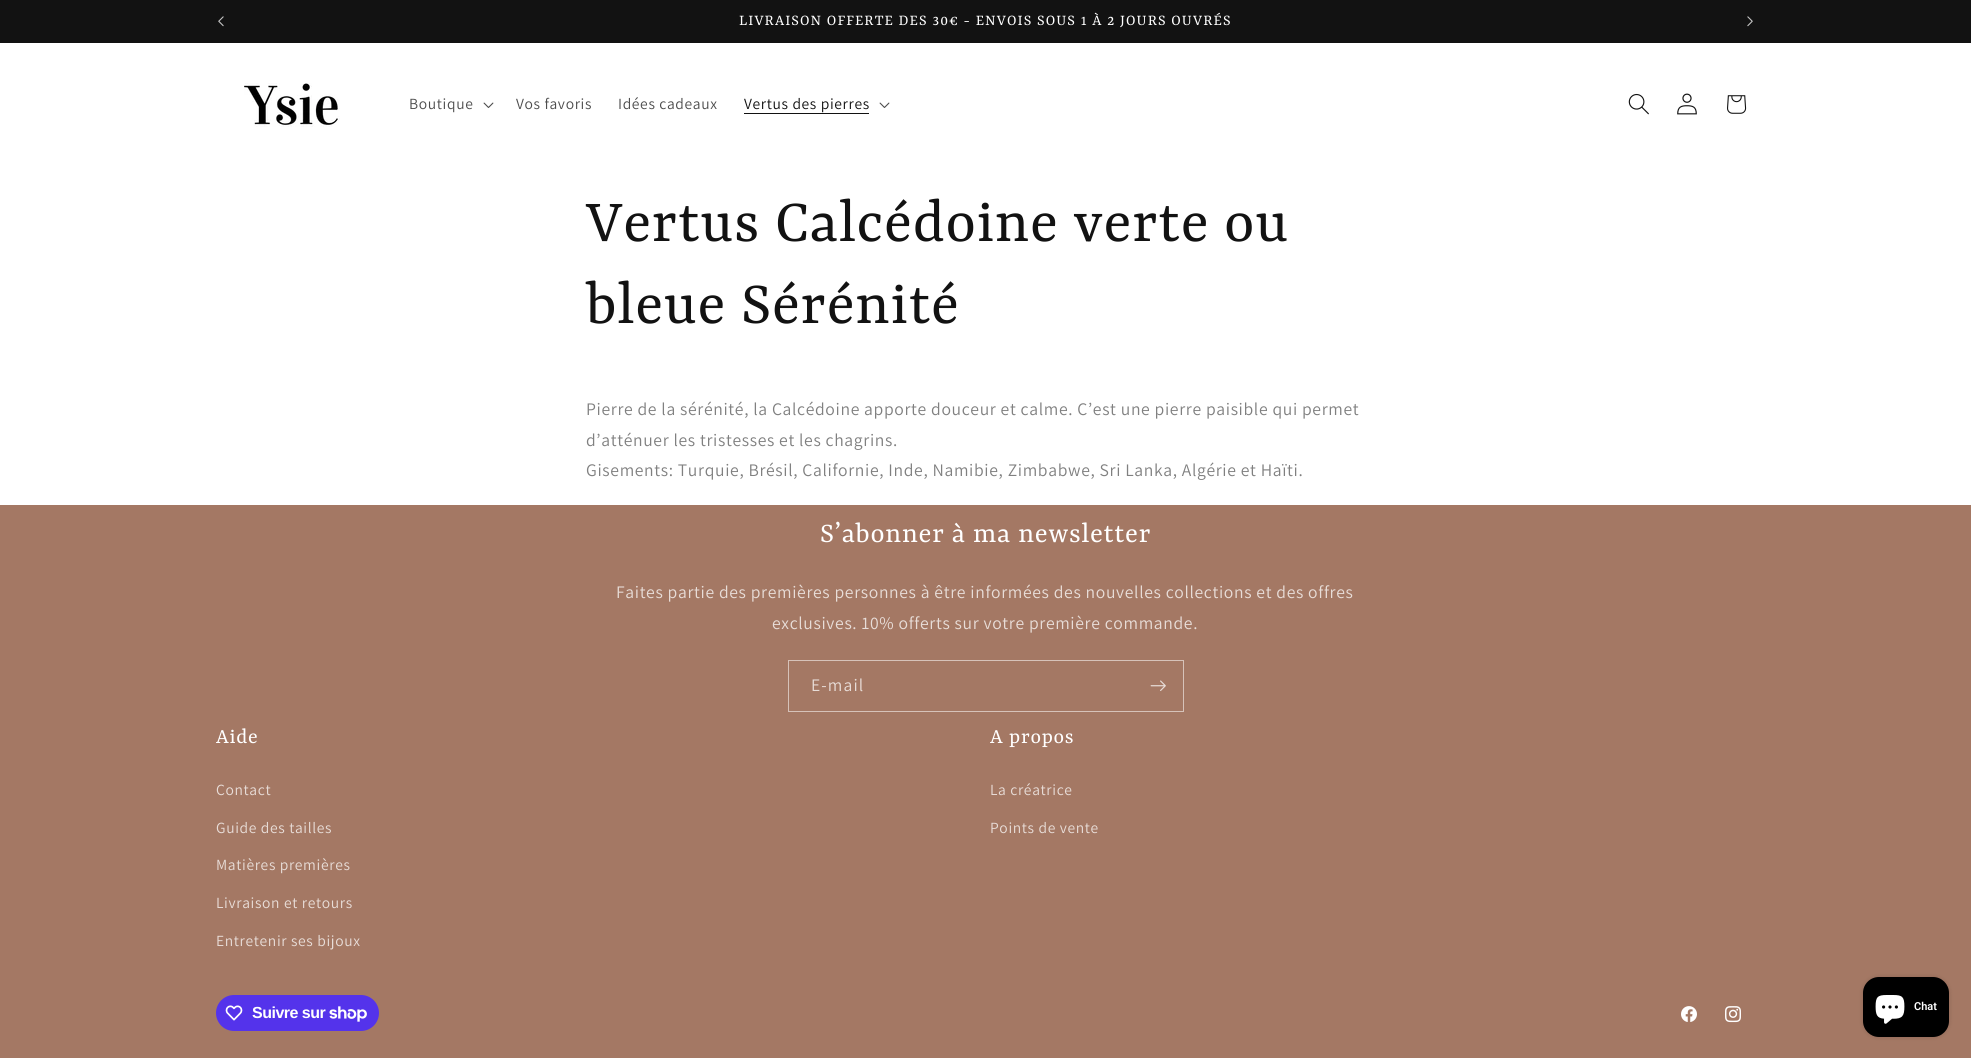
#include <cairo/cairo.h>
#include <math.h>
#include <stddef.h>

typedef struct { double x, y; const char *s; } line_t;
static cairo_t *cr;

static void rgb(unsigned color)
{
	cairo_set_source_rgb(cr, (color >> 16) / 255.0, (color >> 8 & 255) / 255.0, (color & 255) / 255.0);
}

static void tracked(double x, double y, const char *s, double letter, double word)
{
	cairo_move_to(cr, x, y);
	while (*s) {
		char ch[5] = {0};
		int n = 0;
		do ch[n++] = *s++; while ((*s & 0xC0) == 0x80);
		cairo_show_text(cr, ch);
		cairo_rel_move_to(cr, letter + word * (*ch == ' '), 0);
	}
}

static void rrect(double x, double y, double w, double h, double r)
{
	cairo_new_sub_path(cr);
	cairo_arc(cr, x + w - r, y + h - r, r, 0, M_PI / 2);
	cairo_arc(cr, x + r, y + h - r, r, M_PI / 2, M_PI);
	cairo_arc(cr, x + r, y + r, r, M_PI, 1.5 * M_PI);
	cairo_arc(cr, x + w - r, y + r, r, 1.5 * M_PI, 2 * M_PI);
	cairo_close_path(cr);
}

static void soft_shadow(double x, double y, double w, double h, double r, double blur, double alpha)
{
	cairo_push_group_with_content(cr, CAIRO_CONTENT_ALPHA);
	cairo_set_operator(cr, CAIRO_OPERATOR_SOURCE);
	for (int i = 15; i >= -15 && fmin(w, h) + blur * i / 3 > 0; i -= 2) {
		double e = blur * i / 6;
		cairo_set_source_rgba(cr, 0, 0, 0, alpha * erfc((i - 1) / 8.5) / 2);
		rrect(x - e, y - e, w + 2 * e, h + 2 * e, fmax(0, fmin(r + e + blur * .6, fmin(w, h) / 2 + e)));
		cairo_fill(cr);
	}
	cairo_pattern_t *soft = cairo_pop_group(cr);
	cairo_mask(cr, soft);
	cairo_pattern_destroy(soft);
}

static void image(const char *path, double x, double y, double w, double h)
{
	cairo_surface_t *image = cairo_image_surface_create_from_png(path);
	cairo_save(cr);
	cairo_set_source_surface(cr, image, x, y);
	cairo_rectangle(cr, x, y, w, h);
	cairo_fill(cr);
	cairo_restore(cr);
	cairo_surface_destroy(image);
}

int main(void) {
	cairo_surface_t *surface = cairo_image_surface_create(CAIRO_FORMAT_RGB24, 1971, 1058);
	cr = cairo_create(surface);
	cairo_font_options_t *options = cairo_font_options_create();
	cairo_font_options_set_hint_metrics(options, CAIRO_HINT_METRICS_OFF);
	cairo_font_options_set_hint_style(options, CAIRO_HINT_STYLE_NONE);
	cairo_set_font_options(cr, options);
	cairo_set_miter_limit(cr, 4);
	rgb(0xffffff);
	cairo_paint(cr);
	rgb(0x121212);
	cairo_rectangle(cr, 0, 0, 1971, 43);
	cairo_fill(cr);
	image("img/1.png", 218, 16, 6, 11);
	image("img/2.png", 1747, 16, 6, 11);
	image("img/3.png", 244, 83, 96, 44);
	image("img/4.png", 483, 102, 11, 6);
	cairo_rectangle(cr, 744, 113, 125, 1);
	cairo_fill(cr);
	image("img/4.png", 879, 102, 11, 6);
	image("img/5.png", 1628, 93, 21, 22);
	image("img/6.png", 1677, 93, 20, 22);
	image("img/7.png", 1727, 95, 20, 19);
	rgb(0xa47864);
	cairo_rectangle(cr, 0, 505, 1971, 553);
	cairo_fill(cr);
	cairo_rectangle(cr, 788.5, 660.5, 395, 51);
	rgb(0xd6c2b9);
	cairo_set_line_width(cr, 1);
	cairo_stroke(cr);
	image("img/8.png", 1150, 680, 16, 11);
	rgb(0x5433eb);
	rrect(216, 995, 163, 36, 18);
	cairo_fill(cr);
	image("img/9.png", 225, 1005, 18, 16);
	image("img/10.png", 329, 1006, 38, 16);
	image("img/11.png", 1681, 1006, 16, 16);
	image("img/12.png", 1725, 1006, 16, 17);
	rgb(0x000000);
	soft_shadow(1863, 977, 86, 60, 16, 2.5, 0.15);
	rgb(0x000000);
	rrect(1863, 977, 86, 60, 16);
	cairo_fill(cr);
	image("img/13.png", 1875, 995, 30, 29);
	cairo_select_font_face(cr, "Rasa", CAIRO_FONT_SLANT_NORMAL, CAIRO_FONT_WEIGHT_NORMAL);
	cairo_set_font_size(cr, 16.25);
	rgb(0xffffff);
	tracked(739, 25, "LIVRAISON OFFERTE DES 30€ - ENVOIS SOUS 1 À 2 JOURS OUVRÉS", 1.1, 0);
	cairo_select_font_face(cr, "Assistant", CAIRO_FONT_SLANT_NORMAL, CAIRO_FONT_WEIGHT_NORMAL);
	cairo_set_font_size(cr, 15.5);
	rgb(0x4d4d4d);
	{
		static const line_t items[] = {
			{409, 109, "Boutique"},
			{516, 109, "Vos favoris"},
			{618, 109, "Idées cadeaux"},
		};
		for (size_t i = 0; i < sizeof items / sizeof *items; i++) {
			tracked(items[i].x, items[i].y, items[i].s, 0.65, 0);
		}
	}
	rgb(0x121212);
	tracked(744, 109, "Vertus des pierres", 0.65, 0);
	cairo_select_font_face(cr, "Rasa", CAIRO_FONT_SLANT_NORMAL, CAIRO_FONT_WEIGHT_NORMAL);
	cairo_set_font_size(cr, 65);
	tracked(586, 241, "Vertus Calcédoine verte ou", 0.75, 0);
	tracked(586, 323, "bleue Sérénité", 0.75, 0);
	cairo_select_font_face(cr, "Assistant", CAIRO_FONT_SLANT_NORMAL, CAIRO_FONT_WEIGHT_NORMAL);
	cairo_set_font_size(cr, 17.6);
	rgb(0x808080);
	{
		static const line_t items[] = {
			{586, 415, "Pierre de la sérénité, la Calcédoine apporte douceur et calme. C’est une pierre paisible qui permet"},
			{586, 446, "d’atténuer les tristesses et les chagrins."},
			{586, 476, "Gisements: Turquie, Brésil, Californie, Inde, Namibie, Zimbabwe, Sri Lanka, Algérie et Haïti."},
		};
		for (size_t i = 0; i < sizeof items / sizeof *items; i++) {
			tracked(items[i].x, items[i].y, items[i].s, 0.65, 0);
		}
	}
	cairo_select_font_face(cr, "Rasa", CAIRO_FONT_SLANT_NORMAL, CAIRO_FONT_WEIGHT_NORMAL);
	cairo_set_font_size(cr, 30);
	rgb(0xffffff);
	tracked(820, 542, "S’abonner à ma newsletter", 0.75, 0);
	cairo_select_font_face(cr, "Assistant", CAIRO_FONT_SLANT_NORMAL, CAIRO_FONT_WEIGHT_NORMAL);
	cairo_set_font_size(cr, 17.6);
	rgb(0xe8ddd8);
	tracked(616, 598, "Faites partie des premières personnes à être informées des nouvelles collections et des offres", 0.65, 0);
	tracked(772, 629, "exclusives. 10% offerts sur votre première commande.", 0.65, 0);
	tracked(811, 691, "E-mail", 1.1, 0);
	cairo_select_font_face(cr, "Rasa", CAIRO_FONT_SLANT_NORMAL, CAIRO_FONT_WEIGHT_NORMAL);
	cairo_set_font_size(cr, 22.5);
	rgb(0xffffff);
	tracked(216, 743, "Aide", 0.75, 0);
	cairo_select_font_face(cr, "Assistant", CAIRO_FONT_SLANT_NORMAL, CAIRO_FONT_WEIGHT_NORMAL);
	cairo_set_font_size(cr, 15.5);
	rgb(0xe8ddd8);
	{
		static const line_t items[] = {
			{216, 795, "Contact"},
			{216, 833, "Guide des tailles"},
			{216, 870, "Matières premières"},
			{216, 908, "Livraison et retours"},
			{216, 946, "Entretenir ses bijoux"},
		};
		for (size_t i = 0; i < sizeof items / sizeof *items; i++) {
			tracked(items[i].x, items[i].y, items[i].s, 0.65, 0);
		}
	}
	cairo_select_font_face(cr, "Rasa", CAIRO_FONT_SLANT_NORMAL, CAIRO_FONT_WEIGHT_NORMAL);
	cairo_set_font_size(cr, 22.5);
	rgb(0xffffff);
	tracked(990, 743, "A propos", 0.75, 0);
	cairo_select_font_face(cr, "Assistant", CAIRO_FONT_SLANT_NORMAL, CAIRO_FONT_WEIGHT_NORMAL);
	cairo_set_font_size(cr, 15.5);
	rgb(0xe8ddd8);
	tracked(990, 795, "La créatrice", 0.65, 0);
	tracked(990, 833, "Points de vente", 0.65, 0);
	cairo_select_font_face(cr, "Liberation Sans", CAIRO_FONT_SLANT_NORMAL, CAIRO_FONT_WEIGHT_BOLD);
	cairo_set_font_size(cr, 16);
	rgb(0xffffff);
	tracked(252, 1018, "Suivre sur", -0.5, 0);
	cairo_select_font_face(cr, "Roboto SemiBold", CAIRO_FONT_SLANT_NORMAL, CAIRO_FONT_WEIGHT_NORMAL);
	cairo_set_font_size(cr, 11);
	cairo_move_to(cr, 1914, 1010);
	cairo_show_text(cr, "Chat");
	cairo_surface_write_to_png(surface, "page.png");
	cairo_font_options_destroy(options);
	cairo_destroy(cr);
	cairo_surface_destroy(surface);
	return 0;
}
